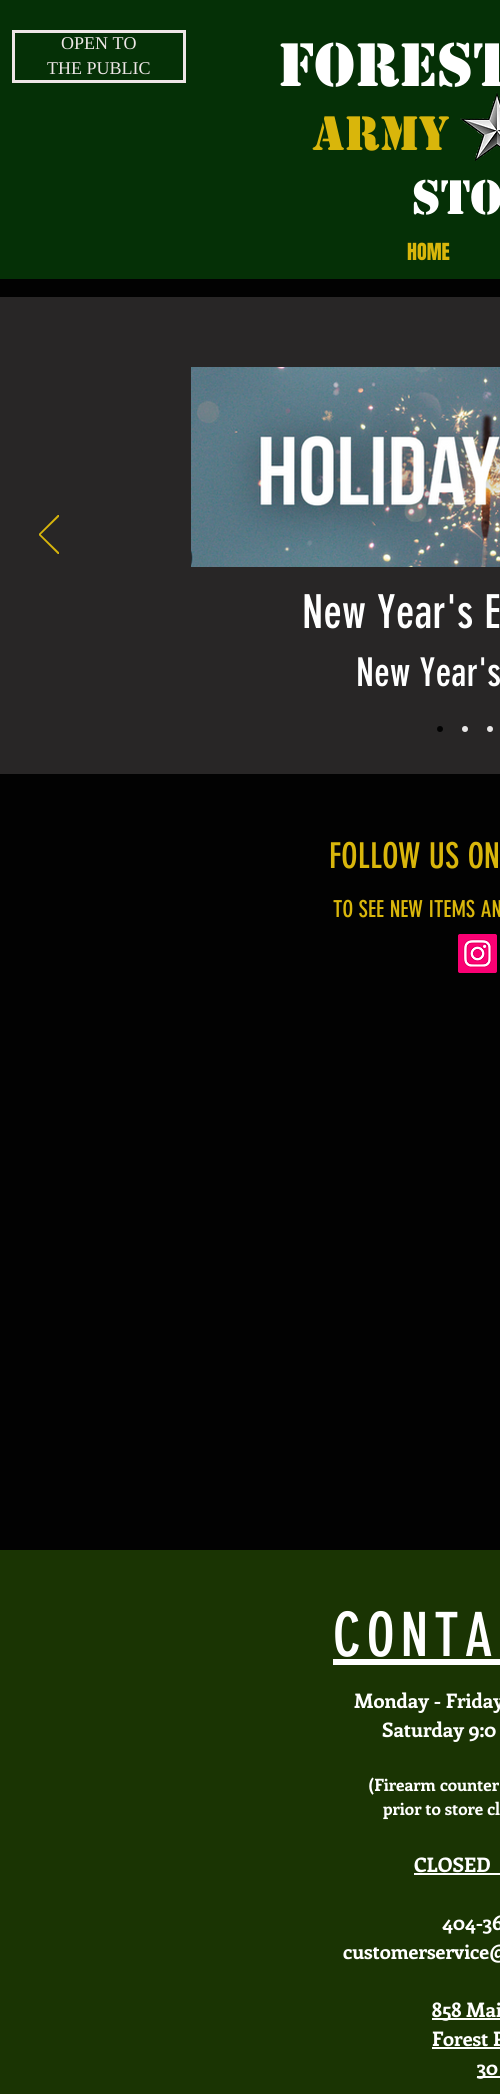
#include <cairo/cairo.h>
#include <math.h>
#include <stddef.h>

typedef struct { double x, y; const char *s; } line_t;
typedef struct { double x, y, w, h; unsigned color; } box_t;
static cairo_t *cr;

static void rgb(unsigned color)
{
	cairo_set_source_rgb(cr, (color >> 16) / 255.0, (color >> 8 & 255) / 255.0, (color & 255) / 255.0);
}

static void tracked(double x, double y, const char *s, double letter, double word)
{
	cairo_move_to(cr, x, y);
	while (*s) {
		char ch[5] = {0};
		int n = 0;
		do ch[n++] = *s++; while ((*s & 0xC0) == 0x80);
		cairo_show_text(cr, ch);
		cairo_rel_move_to(cr, letter + word * (*ch == ' '), 0);
	}
}

static void image(const char *path, double x, double y, double w, double h)
{
	cairo_surface_t *image = cairo_image_surface_create_from_png(path);
	cairo_save(cr);
	cairo_set_source_surface(cr, image, x, y);
	cairo_rectangle(cr, x, y, w, h);
	cairo_fill(cr);
	cairo_restore(cr);
	cairo_surface_destroy(image);
}

int main(void) {
	cairo_surface_t *surface = cairo_image_surface_create(CAIRO_FORMAT_RGB24, 500, 2094);
	cr = cairo_create(surface);
	cairo_font_options_t *options = cairo_font_options_create();
	cairo_font_options_set_hint_metrics(options, CAIRO_HINT_METRICS_OFF);
	cairo_font_options_set_hint_style(options, CAIRO_HINT_STYLE_NONE);
	cairo_set_font_options(cr, options);
	cairo_set_miter_limit(cr, 4);
	rgb(0x020202);
	cairo_paint(cr);
	rgb(0x053006);
	cairo_rectangle(cr, 0, 0, 500, 279);
	cairo_fill(cr);
	cairo_rectangle(cr, 13.5, 31.5, 171, 50);
	rgb(0xeee6e6);
	cairo_set_line_width(cr, 3);
	cairo_stroke(cr);
	image("img/1.png", 460, 92, 40, 69);
	rgb(0x282626);
	cairo_rectangle(cr, 0, 297, 500, 477);
	cairo_fill(cr);
	cairo_save(cr);
	cairo_rectangle(cr, 39, 515, 20, 39);
	cairo_clip(cr);
	cairo_new_path(cr);
	cairo_move_to(cr, 58.5, 554);
	cairo_line_to(cr, 39, 534.5);
	cairo_line_to(cr, 58.5, 515);
	cairo_line_to(cr, 59, 516);
	cairo_line_to(cr, 40, 534.5);
	cairo_line_to(cr, 59, 553);
	cairo_close_path(cr);
	rgb(0xd9b60b);
	cairo_set_line_width(cr, 1);
	cairo_stroke(cr);
	cairo_restore(cr);
	image("img/2.png", 191, 367, 309, 200);
	rgb(0x020202);
	cairo_arc(cr, 440, 729, 3, 0, 2 * M_PI);
	cairo_fill(cr);
	rgb(0xe8e6e6);
	cairo_arc(cr, 465, 729, 3, 0, 2 * M_PI);
	cairo_fill(cr);
	cairo_arc(cr, 490, 729, 3, 0, 2 * M_PI);
	cairo_fill(cr);
	image("img/3.png", 458, 934, 39, 39);
	{
		static const box_t items[] = {
			{0, 1550, 500, 544, 0x1a3403},
			{333, 1659, 167, 6, 0xffffff},
			{414, 1873, 86, 2, 0xffffff},
			{432, 2018, 68, 2, 0xffffff},
			{432, 2047, 68, 2, 0xffffff},
			{477, 2076, 23, 2, 0xffffff},
		};
		for (size_t i = 0; i < sizeof items / sizeof *items; i++) {
			rgb(items[i].color);
			cairo_rectangle(cr, items[i].x, items[i].y, items[i].w, items[i].h);
			cairo_fill(cr);
		}
	}
	cairo_select_font_face(cr, "Liberation Serif", CAIRO_FONT_SLANT_NORMAL, CAIRO_FONT_WEIGHT_NORMAL);
	cairo_set_font_size(cr, 18);
	rgb(0xeee6e6);
	cairo_move_to(cr, 61, 49);
	cairo_show_text(cr, "OPEN TO");
	cairo_move_to(cr, 47, 74);
	cairo_show_text(cr, "THE PUBLIC");
	cairo_select_font_face(cr, "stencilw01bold", CAIRO_FONT_SLANT_NORMAL, CAIRO_FONT_WEIGHT_BOLD);
	cairo_set_font_size(cr, 57);
	rgb(0xffffff);
	cairo_move_to(cr, 278, 86);
	cairo_show_text(cr, "Forest");
	cairo_set_font_size(cr, 45);
	rgb(0xd9b60b);
	cairo_move_to(cr, 313, 150);
	cairo_show_text(cr, "Army");
	rgb(0xffffff);
	cairo_move_to(cr, 412, 214);
	cairo_show_text(cr, "Sto");
	cairo_select_font_face(cr, "Anton", CAIRO_FONT_SLANT_NORMAL, CAIRO_FONT_WEIGHT_NORMAL);
	cairo_set_font_size(cr, 20);
	rgb(0xd9b60b);
	cairo_move_to(cr, 407, 260);
	cairo_show_text(cr, "HOME");
	cairo_select_font_face(cr, "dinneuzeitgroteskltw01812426", CAIRO_FONT_SLANT_NORMAL, CAIRO_FONT_WEIGHT_NORMAL);
	cairo_set_font_size(cr, 46);
	rgb(0xffffff);
	cairo_move_to(cr, 302, 628);
	cairo_show_text(cr, "New Year's E");
	cairo_set_font_size(cr, 39);
	cairo_move_to(cr, 356, 686);
	cairo_show_text(cr, "New Year's");
	cairo_set_font_size(cr, 35);
	rgb(0xd9b60b);
	cairo_move_to(cr, 329, 868);
	cairo_show_text(cr, "FOLLOW US ON");
	cairo_set_font_size(cr, 23);
	cairo_move_to(cr, 333, 917);
	cairo_show_text(cr, "TO SEE NEW ITEMS AN");
	cairo_set_font_size(cr, 60);
	rgb(0xffffff);
	tracked(333, 1656, "CONTA", 6, 0);
	cairo_select_font_face(cr, "Enriqueta", CAIRO_FONT_SLANT_NORMAL, CAIRO_FONT_WEIGHT_BOLD);
	cairo_set_font_size(cr, 20);
	cairo_move_to(cr, 354, 1708);
	cairo_show_text(cr, "Monday - Friday");
	cairo_move_to(cr, 382, 1737);
	cairo_show_text(cr, "Saturday 9:0");
	cairo_set_font_size(cr, 17);
	cairo_move_to(cr, 368, 1791);
	cairo_show_text(cr, "(Firearm counter");
	cairo_move_to(cr, 383, 1815);
	cairo_show_text(cr, "prior to store cl");
	cairo_set_font_size(cr, 20);
	{
		static const line_t items[] = {
			{414, 1872, "CLOSED"},
			{442, 1930, "404-36"},
			{343, 1959, "customerservice@"},
			{432, 2017, "858 Mai"},
			{432, 2046, "Forest P"},
			{477, 2075, "30"},
		};
		for (size_t i = 0; i < sizeof items / sizeof *items; i++) {
			cairo_move_to(cr, items[i].x, items[i].y);
			cairo_show_text(cr, items[i].s);
		}
	}
	cairo_surface_write_to_png(surface, "page.png");
	cairo_font_options_destroy(options);
	cairo_destroy(cr);
	cairo_surface_destroy(surface);
	return 0;
}
